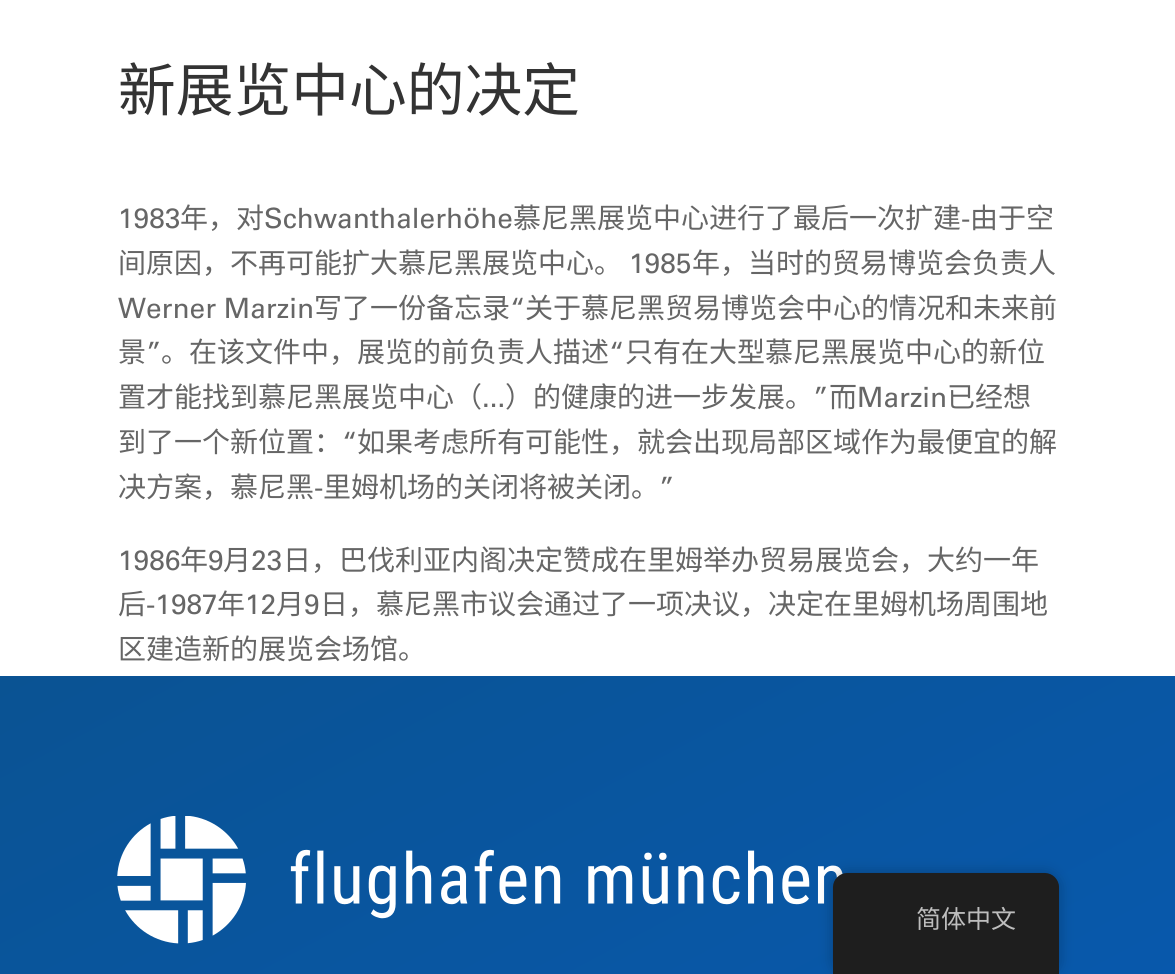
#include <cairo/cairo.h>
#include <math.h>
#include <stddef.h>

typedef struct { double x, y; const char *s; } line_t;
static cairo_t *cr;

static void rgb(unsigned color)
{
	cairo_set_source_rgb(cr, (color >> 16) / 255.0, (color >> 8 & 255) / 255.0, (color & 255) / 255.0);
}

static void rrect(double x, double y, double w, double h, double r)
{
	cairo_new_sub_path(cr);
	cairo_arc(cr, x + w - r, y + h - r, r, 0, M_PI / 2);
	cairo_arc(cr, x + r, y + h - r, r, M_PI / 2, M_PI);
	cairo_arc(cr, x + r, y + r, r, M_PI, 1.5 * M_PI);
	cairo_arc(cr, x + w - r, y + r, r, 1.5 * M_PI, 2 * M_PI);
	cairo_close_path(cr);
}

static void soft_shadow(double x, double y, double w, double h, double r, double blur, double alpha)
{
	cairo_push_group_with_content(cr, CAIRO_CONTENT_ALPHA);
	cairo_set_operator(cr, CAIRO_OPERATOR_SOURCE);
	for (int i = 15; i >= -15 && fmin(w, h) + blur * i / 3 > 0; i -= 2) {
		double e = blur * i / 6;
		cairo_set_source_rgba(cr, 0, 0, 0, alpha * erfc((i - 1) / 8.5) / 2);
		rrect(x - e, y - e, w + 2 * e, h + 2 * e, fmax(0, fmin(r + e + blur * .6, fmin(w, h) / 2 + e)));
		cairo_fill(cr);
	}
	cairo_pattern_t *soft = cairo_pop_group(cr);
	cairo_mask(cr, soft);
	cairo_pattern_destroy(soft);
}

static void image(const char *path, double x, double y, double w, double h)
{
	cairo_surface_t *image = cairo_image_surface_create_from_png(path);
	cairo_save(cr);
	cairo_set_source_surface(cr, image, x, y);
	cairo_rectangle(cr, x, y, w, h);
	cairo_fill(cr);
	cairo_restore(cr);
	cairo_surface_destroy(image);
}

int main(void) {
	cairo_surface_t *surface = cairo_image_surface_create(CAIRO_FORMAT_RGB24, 1175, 974);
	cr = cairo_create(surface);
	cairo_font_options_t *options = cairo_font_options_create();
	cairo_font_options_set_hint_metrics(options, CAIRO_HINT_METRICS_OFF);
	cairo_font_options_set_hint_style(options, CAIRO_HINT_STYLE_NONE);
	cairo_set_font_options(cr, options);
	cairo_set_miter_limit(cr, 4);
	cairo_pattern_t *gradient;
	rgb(0xffffff);
	cairo_paint(cr);
	gradient = cairo_pattern_create_linear(273, 530, 903, 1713);
	cairo_pattern_add_color_stop_rgba(gradient, 0, 0.039, 0.325, 0.576, 1);
	cairo_pattern_add_color_stop_rgba(gradient, 1, 0.027, 0.361, 0.737, 1);
	cairo_set_source(cr, gradient);
	cairo_pattern_destroy(gradient);
	cairo_rectangle(cr, 0, 676, 1175, 298);
	cairo_fill(cr);
	image("img/1.png", 117, 816, 726, 128);
	rgb(0x000000);
	soft_shadow(833, 873, 226, 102, 14, 7, 0.25);
	rgb(0x1e1e1e);
	cairo_new_path(cr);
	cairo_move_to(cr, 847, 873);
	cairo_line_to(cr, 1045, 873);
	cairo_curve_to(cr, 1052.5, 873, 1059, 879.5, 1059, 887);
	cairo_line_to(cr, 1059, 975);
	cairo_line_to(cr, 833, 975);
	cairo_line_to(cr, 833, 887);
	cairo_curve_to(cr, 833, 879.5, 839.5, 873, 847, 873);
	cairo_close_path(cr);
	cairo_fill(cr);
	cairo_select_font_face(cr, "Noto Sans CJK SC", CAIRO_FONT_SLANT_NORMAL, CAIRO_FONT_WEIGHT_NORMAL);
	cairo_set_font_size(cr, 57.75);
	rgb(0x333333);
	cairo_move_to(cr, 118, 111);
	cairo_show_text(cr, "新展览中心的决定");
	cairo_select_font_face(cr, "Univers", CAIRO_FONT_SLANT_NORMAL, CAIRO_FONT_WEIGHT_NORMAL);
	cairo_set_font_size(cr, 28);
	rgb(0x666666);
	cairo_move_to(cr, 118, 228);
	cairo_show_text(cr, "1983");
	cairo_select_font_face(cr, "Noto Sans CJK SC", CAIRO_FONT_SLANT_NORMAL, CAIRO_FONT_WEIGHT_NORMAL);
	cairo_move_to(cr, 180, 228);
	cairo_show_text(cr, "年，对");
	cairo_select_font_face(cr, "Univers", CAIRO_FONT_SLANT_NORMAL, CAIRO_FONT_WEIGHT_NORMAL);
	cairo_move_to(cr, 264, 228);
	cairo_show_text(cr, "Schwanthalerhöhe");
	cairo_select_font_face(cr, "Noto Sans CJK SC", CAIRO_FONT_SLANT_NORMAL, CAIRO_FONT_WEIGHT_NORMAL);
	cairo_move_to(cr, 513, 228);
	cairo_show_text(cr, "慕尼黑展览中心进行了最后一次扩建");
	cairo_select_font_face(cr, "Univers", CAIRO_FONT_SLANT_NORMAL, CAIRO_FONT_WEIGHT_NORMAL);
	cairo_move_to(cr, 961, 228);
	cairo_show_text(cr, "-");
	cairo_select_font_face(cr, "Noto Sans CJK SC", CAIRO_FONT_SLANT_NORMAL, CAIRO_FONT_WEIGHT_NORMAL);
	cairo_move_to(cr, 970, 228);
	cairo_show_text(cr, "由于空");
	cairo_move_to(cr, 118, 273);
	cairo_show_text(cr, "间原因，不再可能扩大慕尼黑展览中心。");
	cairo_select_font_face(cr, "Univers", CAIRO_FONT_SLANT_NORMAL, CAIRO_FONT_WEIGHT_NORMAL);
	cairo_move_to(cr, 629, 273);
	cairo_show_text(cr, "1985");
	cairo_select_font_face(cr, "Noto Sans CJK SC", CAIRO_FONT_SLANT_NORMAL, CAIRO_FONT_WEIGHT_NORMAL);
	cairo_move_to(cr, 692, 273);
	cairo_show_text(cr, "年，当时的贸易博览会负责人");
	cairo_select_font_face(cr, "Univers", CAIRO_FONT_SLANT_NORMAL, CAIRO_FONT_WEIGHT_NORMAL);
	cairo_move_to(cr, 118, 318);
	cairo_show_text(cr, "Werner Marzin");
	cairo_select_font_face(cr, "Noto Sans CJK SC", CAIRO_FONT_SLANT_NORMAL, CAIRO_FONT_WEIGHT_NORMAL);
	cairo_move_to(cr, 314, 318);
	cairo_show_text(cr, "写了一份备忘录");
	cairo_select_font_face(cr, "Univers", CAIRO_FONT_SLANT_NORMAL, CAIRO_FONT_WEIGHT_NORMAL);
	cairo_move_to(cr, 510, 318);
	cairo_show_text(cr, "“");
	cairo_select_font_face(cr, "Noto Sans CJK SC", CAIRO_FONT_SLANT_NORMAL, CAIRO_FONT_WEIGHT_NORMAL);
	cairo_move_to(cr, 525, 318);
	cairo_show_text(cr, "关于慕尼黑贸易博览会中心的情况和未来前");
	cairo_move_to(cr, 118, 362);
	cairo_show_text(cr, "景");
	cairo_select_font_face(cr, "Univers", CAIRO_FONT_SLANT_NORMAL, CAIRO_FONT_WEIGHT_NORMAL);
	cairo_move_to(cr, 146, 362);
	cairo_show_text(cr, "”");
	cairo_select_font_face(cr, "Noto Sans CJK SC", CAIRO_FONT_SLANT_NORMAL, CAIRO_FONT_WEIGHT_NORMAL);
	cairo_move_to(cr, 161, 362);
	cairo_show_text(cr, "。在该文件中，展览的前负责人描述");
	cairo_select_font_face(cr, "Univers", CAIRO_FONT_SLANT_NORMAL, CAIRO_FONT_WEIGHT_NORMAL);
	cairo_move_to(cr, 609, 362);
	cairo_show_text(cr, "“");
	cairo_select_font_face(cr, "Noto Sans CJK SC", CAIRO_FONT_SLANT_NORMAL, CAIRO_FONT_WEIGHT_NORMAL);
	cairo_move_to(cr, 625, 362);
	cairo_show_text(cr, "只有在大型慕尼黑展览中心的新位");
	cairo_move_to(cr, 118, 407);
	cairo_show_text(cr, "置才能找到慕尼黑展览中心（");
	cairo_select_font_face(cr, "Univers", CAIRO_FONT_SLANT_NORMAL, CAIRO_FONT_WEIGHT_NORMAL);
	cairo_move_to(cr, 482, 407);
	cairo_show_text(cr, "...");
	cairo_select_font_face(cr, "Noto Sans CJK SC", CAIRO_FONT_SLANT_NORMAL, CAIRO_FONT_WEIGHT_NORMAL);
	cairo_move_to(cr, 505, 407);
	cairo_show_text(cr, "）的健康的进一步发展。");
	cairo_select_font_face(cr, "Univers", CAIRO_FONT_SLANT_NORMAL, CAIRO_FONT_WEIGHT_NORMAL);
	cairo_move_to(cr, 813, 407);
	cairo_show_text(cr, "”");
	cairo_select_font_face(cr, "Noto Sans CJK SC", CAIRO_FONT_SLANT_NORMAL, CAIRO_FONT_WEIGHT_NORMAL);
	cairo_move_to(cr, 829, 407);
	cairo_show_text(cr, "而");
	cairo_select_font_face(cr, "Univers", CAIRO_FONT_SLANT_NORMAL, CAIRO_FONT_WEIGHT_NORMAL);
	cairo_move_to(cr, 857, 407);
	cairo_show_text(cr, "Marzin");
	cairo_select_font_face(cr, "Noto Sans CJK SC", CAIRO_FONT_SLANT_NORMAL, CAIRO_FONT_WEIGHT_NORMAL);
	cairo_move_to(cr, 947, 407);
	cairo_show_text(cr, "已经想");
	cairo_move_to(cr, 118, 452);
	cairo_show_text(cr, "到了一个新位置：");
	cairo_select_font_face(cr, "Univers", CAIRO_FONT_SLANT_NORMAL, CAIRO_FONT_WEIGHT_NORMAL);
	cairo_move_to(cr, 342, 452);
	cairo_show_text(cr, "“");
	cairo_select_font_face(cr, "Noto Sans CJK SC", CAIRO_FONT_SLANT_NORMAL, CAIRO_FONT_WEIGHT_NORMAL);
	{
		static const line_t items[] = {
			{357, 452, "如果考虑所有可能性，就会出现局部区域作为最便宜的解"},
			{118, 497, "决方案，慕尼黑"},
			{323, 497, "里姆机场的关闭将被关闭。"},
		};
		for (size_t i = 0; i < sizeof items / sizeof *items; i++) {
			cairo_move_to(cr, items[i].x, items[i].y);
			cairo_show_text(cr, items[i].s);
		}
	}
	cairo_select_font_face(cr, "Univers", CAIRO_FONT_SLANT_NORMAL, CAIRO_FONT_WEIGHT_NORMAL);
	{
		static const line_t items[] = {
			{659, 497, "”"},
			{314, 497, "-"},
			{118, 570, "1986"},
		};
		for (size_t i = 0; i < sizeof items / sizeof *items; i++) {
			cairo_move_to(cr, items[i].x, items[i].y);
			cairo_show_text(cr, items[i].s);
		}
	}
	cairo_select_font_face(cr, "Noto Sans CJK SC", CAIRO_FONT_SLANT_NORMAL, CAIRO_FONT_WEIGHT_NORMAL);
	cairo_move_to(cr, 180, 570);
	cairo_show_text(cr, "年");
	cairo_select_font_face(cr, "Univers", CAIRO_FONT_SLANT_NORMAL, CAIRO_FONT_WEIGHT_NORMAL);
	cairo_move_to(cr, 208, 570);
	cairo_show_text(cr, "9");
	cairo_select_font_face(cr, "Noto Sans CJK SC", CAIRO_FONT_SLANT_NORMAL, CAIRO_FONT_WEIGHT_NORMAL);
	cairo_move_to(cr, 223, 570);
	cairo_show_text(cr, "月");
	cairo_select_font_face(cr, "Univers", CAIRO_FONT_SLANT_NORMAL, CAIRO_FONT_WEIGHT_NORMAL);
	cairo_move_to(cr, 251, 570);
	cairo_show_text(cr, "23");
	cairo_select_font_face(cr, "Noto Sans CJK SC", CAIRO_FONT_SLANT_NORMAL, CAIRO_FONT_WEIGHT_NORMAL);
	cairo_move_to(cr, 283, 570);
	cairo_show_text(cr, "日，巴伐利亚内阁决定赞成在里姆举办贸易展览会，大约一年");
	cairo_move_to(cr, 118, 614);
	cairo_show_text(cr, "后");
	cairo_select_font_face(cr, "Univers", CAIRO_FONT_SLANT_NORMAL, CAIRO_FONT_WEIGHT_NORMAL);
	cairo_move_to(cr, 146, 614);
	cairo_show_text(cr, "-1987");
	cairo_select_font_face(cr, "Noto Sans CJK SC", CAIRO_FONT_SLANT_NORMAL, CAIRO_FONT_WEIGHT_NORMAL);
	cairo_move_to(cr, 217, 614);
	cairo_show_text(cr, "年");
	cairo_select_font_face(cr, "Univers", CAIRO_FONT_SLANT_NORMAL, CAIRO_FONT_WEIGHT_NORMAL);
	cairo_move_to(cr, 245, 614);
	cairo_show_text(cr, "12");
	cairo_select_font_face(cr, "Noto Sans CJK SC", CAIRO_FONT_SLANT_NORMAL, CAIRO_FONT_WEIGHT_NORMAL);
	cairo_move_to(cr, 276, 614);
	cairo_show_text(cr, "月");
	cairo_select_font_face(cr, "Univers", CAIRO_FONT_SLANT_NORMAL, CAIRO_FONT_WEIGHT_NORMAL);
	cairo_move_to(cr, 304, 614);
	cairo_show_text(cr, "9");
	cairo_select_font_face(cr, "Noto Sans CJK SC", CAIRO_FONT_SLANT_NORMAL, CAIRO_FONT_WEIGHT_NORMAL);
	cairo_move_to(cr, 320, 614);
	cairo_show_text(cr, "日，慕尼黑市议会通过了一项决议，决定在里姆机场周围地");
	cairo_move_to(cr, 118, 659);
	cairo_show_text(cr, "区建造新的展览会场馆。");
	cairo_set_font_size(cr, 25);
	rgb(0xbdbdbd);
	cairo_move_to(cr, 916, 928);
	cairo_show_text(cr, "简体中文");
	cairo_surface_write_to_png(surface, "page.png");
	cairo_font_options_destroy(options);
	cairo_destroy(cr);
	cairo_surface_destroy(surface);
	return 0;
}
